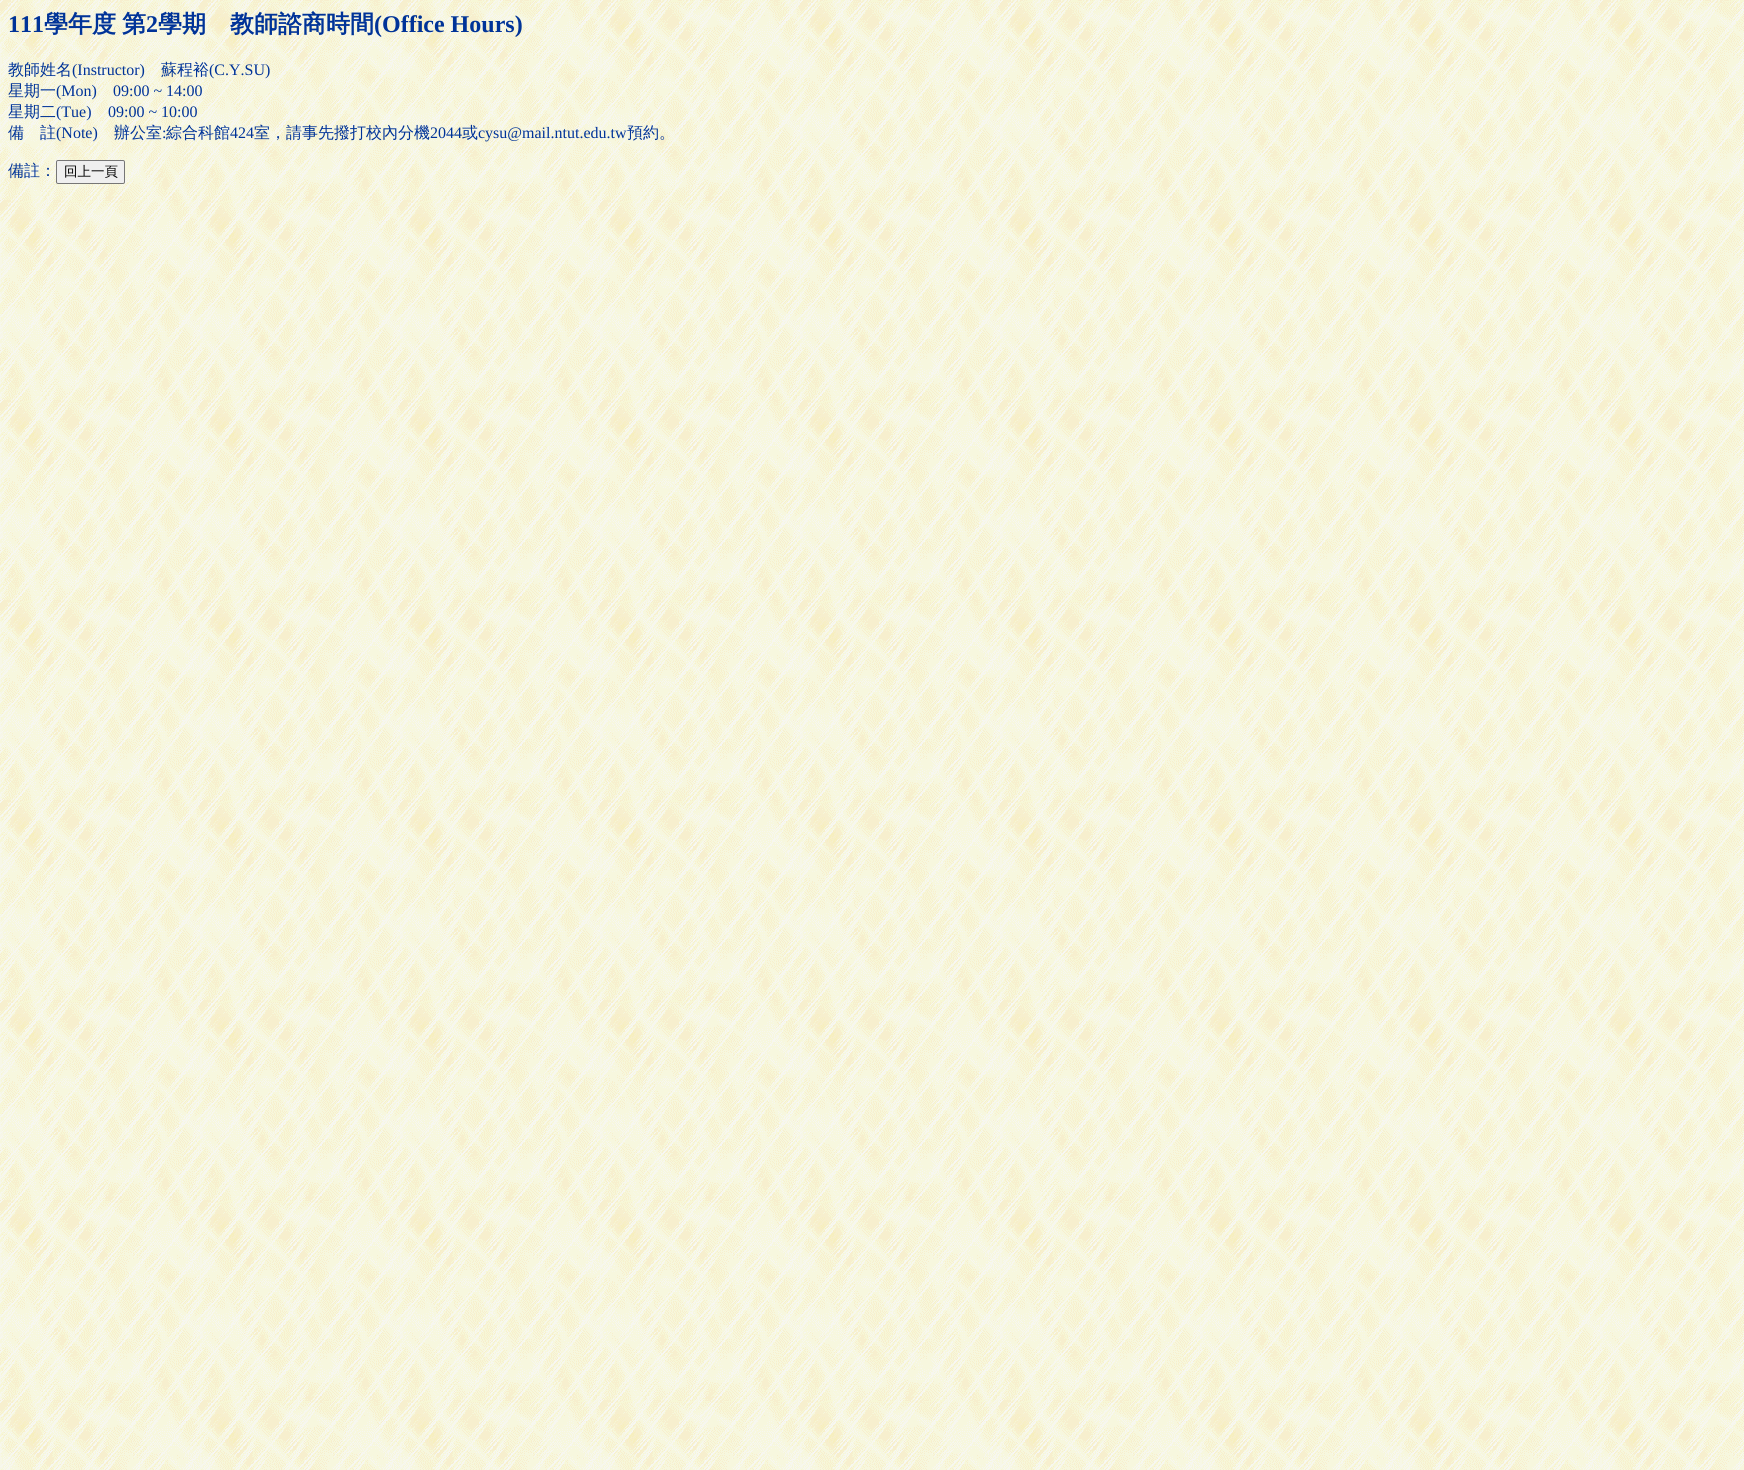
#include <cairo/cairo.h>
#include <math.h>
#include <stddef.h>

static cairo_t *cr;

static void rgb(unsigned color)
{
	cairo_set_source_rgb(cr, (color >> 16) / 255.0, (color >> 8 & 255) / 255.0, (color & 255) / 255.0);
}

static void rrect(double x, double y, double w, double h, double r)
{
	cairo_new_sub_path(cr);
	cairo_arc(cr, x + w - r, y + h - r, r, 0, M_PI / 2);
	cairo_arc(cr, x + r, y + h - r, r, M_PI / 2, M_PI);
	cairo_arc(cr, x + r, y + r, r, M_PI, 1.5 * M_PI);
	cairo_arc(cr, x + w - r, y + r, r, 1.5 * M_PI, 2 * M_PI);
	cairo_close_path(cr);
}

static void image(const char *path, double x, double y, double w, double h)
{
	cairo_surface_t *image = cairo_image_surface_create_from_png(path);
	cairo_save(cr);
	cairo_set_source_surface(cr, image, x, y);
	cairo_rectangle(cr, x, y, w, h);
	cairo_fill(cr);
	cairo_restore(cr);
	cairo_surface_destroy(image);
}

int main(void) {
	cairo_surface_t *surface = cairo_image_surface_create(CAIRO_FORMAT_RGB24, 1744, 1470);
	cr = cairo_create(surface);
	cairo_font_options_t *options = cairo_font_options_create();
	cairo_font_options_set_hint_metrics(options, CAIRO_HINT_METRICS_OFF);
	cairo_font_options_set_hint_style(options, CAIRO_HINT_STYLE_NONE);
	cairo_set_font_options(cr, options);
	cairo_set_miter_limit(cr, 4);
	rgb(0xffffff);
	cairo_paint(cr);
	image("img/1.png", 0, 0, 1744, 1470);
	rgb(0xefefef);
	rrect(56.5, 160.5, 68, 23, 1.5);
	cairo_fill_preserve(cr);
	rgb(0x767676);
	cairo_set_line_width(cr, 1);
	cairo_stroke(cr);
	cairo_select_font_face(cr, "Liberation Serif", CAIRO_FONT_SLANT_NORMAL, CAIRO_FONT_WEIGHT_BOLD);
	cairo_set_font_size(cr, 24);
	rgb(0x003398);
	cairo_move_to(cr, 8, 32);
	cairo_show_text(cr, "111");
	cairo_select_font_face(cr, "WenQuanYi Zen Hei", CAIRO_FONT_SLANT_NORMAL, CAIRO_FONT_WEIGHT_BOLD);
	cairo_move_to(cr, 44, 32);
	cairo_show_text(cr, "學年度");
	cairo_move_to(cr, 122, 32);
	cairo_show_text(cr, "第");
	cairo_select_font_face(cr, "Liberation Serif", CAIRO_FONT_SLANT_NORMAL, CAIRO_FONT_WEIGHT_BOLD);
	cairo_move_to(cr, 146, 32);
	cairo_show_text(cr, "2");
	cairo_select_font_face(cr, "WenQuanYi Zen Hei", CAIRO_FONT_SLANT_NORMAL, CAIRO_FONT_WEIGHT_BOLD);
	cairo_move_to(cr, 158, 32);
	cairo_show_text(cr, "學期　教師諮商時間");
	cairo_select_font_face(cr, "Liberation Serif", CAIRO_FONT_SLANT_NORMAL, CAIRO_FONT_WEIGHT_BOLD);
	cairo_move_to(cr, 374, 32);
	cairo_show_text(cr, "(Office Hours)");
	cairo_select_font_face(cr, "WenQuanYi Zen Hei Medium", CAIRO_FONT_SLANT_NORMAL, CAIRO_FONT_WEIGHT_NORMAL);
	cairo_set_font_size(cr, 16);
	cairo_move_to(cr, 8, 75);
	cairo_show_text(cr, "教師姓名");
	cairo_select_font_face(cr, "Liberation Serif", CAIRO_FONT_SLANT_NORMAL, CAIRO_FONT_WEIGHT_NORMAL);
	cairo_move_to(cr, 72, 75);
	cairo_show_text(cr, "(Instructor)");
	cairo_select_font_face(cr, "WenQuanYi Zen Hei Medium", CAIRO_FONT_SLANT_NORMAL, CAIRO_FONT_WEIGHT_NORMAL);
	cairo_move_to(cr, 161, 75);
	cairo_show_text(cr, "蘇程裕");
	cairo_select_font_face(cr, "Liberation Serif", CAIRO_FONT_SLANT_NORMAL, CAIRO_FONT_WEIGHT_NORMAL);
	cairo_move_to(cr, 209, 75);
	cairo_show_text(cr, "(C.Y.SU)");
	cairo_select_font_face(cr, "WenQuanYi Zen Hei Medium", CAIRO_FONT_SLANT_NORMAL, CAIRO_FONT_WEIGHT_NORMAL);
	cairo_move_to(cr, 8, 96);
	cairo_show_text(cr, "星期一");
	cairo_select_font_face(cr, "Liberation Serif", CAIRO_FONT_SLANT_NORMAL, CAIRO_FONT_WEIGHT_NORMAL);
	cairo_move_to(cr, 56, 96);
	cairo_show_text(cr, "(Mon)");
	cairo_move_to(cr, 113, 96);
	cairo_show_text(cr, "09:00 ~ 14:00");
	cairo_select_font_face(cr, "WenQuanYi Zen Hei Medium", CAIRO_FONT_SLANT_NORMAL, CAIRO_FONT_WEIGHT_NORMAL);
	cairo_move_to(cr, 8, 117);
	cairo_show_text(cr, "星期二");
	cairo_select_font_face(cr, "Liberation Serif", CAIRO_FONT_SLANT_NORMAL, CAIRO_FONT_WEIGHT_NORMAL);
	cairo_move_to(cr, 56, 117);
	cairo_show_text(cr, "(Tue)");
	cairo_move_to(cr, 108, 117);
	cairo_show_text(cr, "09:00 ~ 10:00");
	cairo_select_font_face(cr, "WenQuanYi Zen Hei Medium", CAIRO_FONT_SLANT_NORMAL, CAIRO_FONT_WEIGHT_NORMAL);
	cairo_move_to(cr, 8, 138);
	cairo_show_text(cr, "備　註");
	cairo_select_font_face(cr, "Liberation Serif", CAIRO_FONT_SLANT_NORMAL, CAIRO_FONT_WEIGHT_NORMAL);
	cairo_move_to(cr, 56, 138);
	cairo_show_text(cr, "(Note)");
	cairo_select_font_face(cr, "WenQuanYi Zen Hei Medium", CAIRO_FONT_SLANT_NORMAL, CAIRO_FONT_WEIGHT_NORMAL);
	cairo_move_to(cr, 114, 138);
	cairo_show_text(cr, "辦公室");
	cairo_select_font_face(cr, "Liberation Serif", CAIRO_FONT_SLANT_NORMAL, CAIRO_FONT_WEIGHT_NORMAL);
	cairo_move_to(cr, 162, 138);
	cairo_show_text(cr, ":");
	cairo_select_font_face(cr, "WenQuanYi Zen Hei Medium", CAIRO_FONT_SLANT_NORMAL, CAIRO_FONT_WEIGHT_NORMAL);
	cairo_move_to(cr, 166, 138);
	cairo_show_text(cr, "綜合科館");
	cairo_select_font_face(cr, "Liberation Serif", CAIRO_FONT_SLANT_NORMAL, CAIRO_FONT_WEIGHT_NORMAL);
	cairo_move_to(cr, 230, 138);
	cairo_show_text(cr, "424");
	cairo_select_font_face(cr, "WenQuanYi Zen Hei Medium", CAIRO_FONT_SLANT_NORMAL, CAIRO_FONT_WEIGHT_NORMAL);
	cairo_move_to(cr, 254, 138);
	cairo_show_text(cr, "室，請事先撥打校內分機");
	cairo_select_font_face(cr, "Liberation Serif", CAIRO_FONT_SLANT_NORMAL, CAIRO_FONT_WEIGHT_NORMAL);
	cairo_move_to(cr, 430, 138);
	cairo_show_text(cr, "2044");
	cairo_select_font_face(cr, "WenQuanYi Zen Hei Medium", CAIRO_FONT_SLANT_NORMAL, CAIRO_FONT_WEIGHT_NORMAL);
	cairo_move_to(cr, 462, 138);
	cairo_show_text(cr, "或");
	cairo_select_font_face(cr, "Liberation Serif", CAIRO_FONT_SLANT_NORMAL, CAIRO_FONT_WEIGHT_NORMAL);
	cairo_move_to(cr, 478, 138);
	cairo_show_text(cr, "cysu@mail.ntut.edu.tw");
	cairo_select_font_face(cr, "WenQuanYi Zen Hei Medium", CAIRO_FONT_SLANT_NORMAL, CAIRO_FONT_WEIGHT_NORMAL);
	cairo_move_to(cr, 627, 138);
	cairo_show_text(cr, "預約。");
	cairo_move_to(cr, 8, 176);
	cairo_show_text(cr, "備註：");
	cairo_set_font_size(cr, 13.5);
	rgb(0x000000);
	cairo_move_to(cr, 64, 176);
	cairo_show_text(cr, "回上一頁");
	cairo_surface_write_to_png(surface, "page.png");
	cairo_font_options_destroy(options);
	cairo_destroy(cr);
	cairo_surface_destroy(surface);
	return 0;
}
